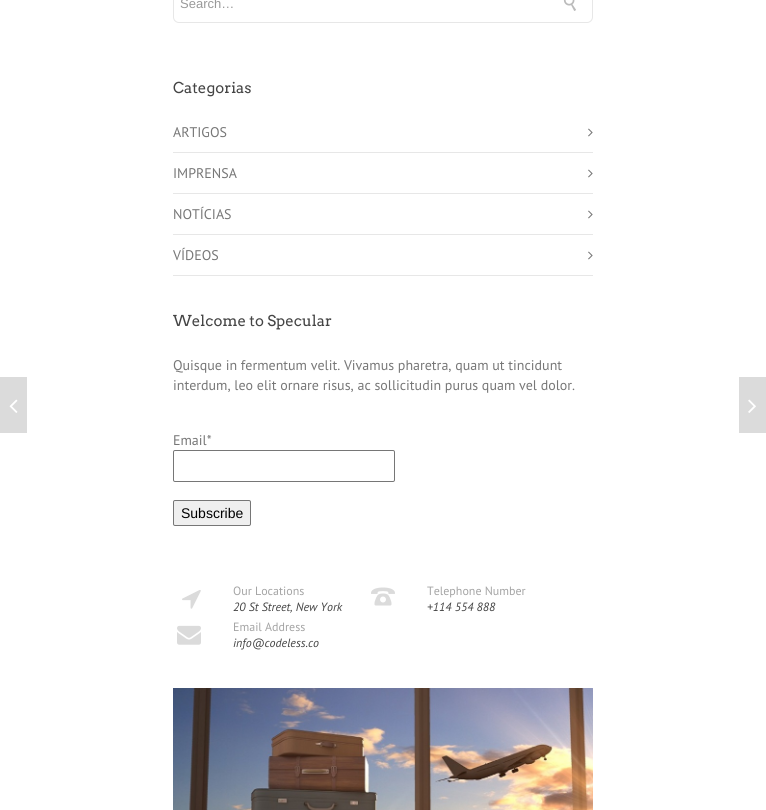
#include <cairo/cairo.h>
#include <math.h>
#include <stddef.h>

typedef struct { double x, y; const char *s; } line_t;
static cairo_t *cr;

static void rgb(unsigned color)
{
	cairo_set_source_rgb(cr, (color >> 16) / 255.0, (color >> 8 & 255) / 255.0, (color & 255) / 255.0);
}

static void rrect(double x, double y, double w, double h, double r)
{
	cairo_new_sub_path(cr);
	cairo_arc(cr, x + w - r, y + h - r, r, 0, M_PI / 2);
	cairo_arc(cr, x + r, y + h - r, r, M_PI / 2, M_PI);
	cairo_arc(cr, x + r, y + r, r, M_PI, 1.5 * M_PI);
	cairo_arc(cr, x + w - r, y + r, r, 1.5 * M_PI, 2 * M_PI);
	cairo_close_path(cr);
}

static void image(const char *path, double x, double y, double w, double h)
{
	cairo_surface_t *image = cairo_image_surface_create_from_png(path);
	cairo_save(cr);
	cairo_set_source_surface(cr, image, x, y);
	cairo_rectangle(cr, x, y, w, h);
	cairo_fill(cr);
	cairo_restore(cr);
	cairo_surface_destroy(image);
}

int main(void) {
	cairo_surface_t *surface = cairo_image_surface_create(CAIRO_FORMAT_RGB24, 766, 810);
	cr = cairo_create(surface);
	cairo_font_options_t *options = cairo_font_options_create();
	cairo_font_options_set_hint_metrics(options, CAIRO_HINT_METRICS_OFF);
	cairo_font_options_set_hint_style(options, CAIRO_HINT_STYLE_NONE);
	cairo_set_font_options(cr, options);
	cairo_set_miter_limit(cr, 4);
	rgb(0xffffff);
	cairo_paint(cr);
	rrect(173.5, -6.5, 419, 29, 5.5);
	rgb(0xe7e7e7);
	cairo_set_line_width(cr, 1);
	cairo_stroke(cr);
	image("img/1.png", 563, 0, 13, 11);
	cairo_rectangle(cr, 173, 152, 420, 1);
	cairo_fill(cr);
	image("img/2.png", 588, 128, 5, 9);
	cairo_rectangle(cr, 173, 193, 420, 1);
	cairo_fill(cr);
	image("img/2.png", 588, 169, 5, 9);
	cairo_rectangle(cr, 173, 234, 420, 1);
	cairo_fill(cr);
	image("img/2.png", 588, 210, 5, 9);
	cairo_rectangle(cr, 173, 275, 420, 1);
	cairo_fill(cr);
	image("img/2.png", 588, 251, 5, 9);
	rrect(173.5, 450.5, 221, 31, 1.5);
	rgb(0x767676);
	cairo_stroke(cr);
	rgb(0xefefef);
	rrect(173.5, 500.5, 77, 25, 1.5);
	cairo_fill_preserve(cr);
	rgb(0x767676);
	cairo_stroke(cr);
	image("img/3.png", 182, 590, 19, 19);
	image("img/4.png", 371, 587, 24, 19);
	image("img/5.png", 177, 625, 24, 20);
	image("img/6.png", 173, 688, 420, 122);
	rgb(0xdbdbdb);
	cairo_rectangle(cr, 0, 377, 27, 56);
	cairo_fill(cr);
	image("img/7.png", 9, 399, 9, 14);
	cairo_rectangle(cr, 739, 377, 27, 56);
	cairo_fill(cr);
	image("img/8.png", 748, 399, 8, 14);
	cairo_select_font_face(cr, "Liberation Sans", CAIRO_FONT_SLANT_NORMAL, CAIRO_FONT_WEIGHT_NORMAL);
	cairo_set_font_size(cr, 13);
	rgb(0x999999);
	cairo_move_to(cr, 180, 8);
	cairo_show_text(cr, "Search…");
	cairo_select_font_face(cr, "Arvo", CAIRO_FONT_SLANT_NORMAL, CAIRO_FONT_WEIGHT_NORMAL);
	cairo_set_font_size(cr, 15);
	rgb(0x444444);
	cairo_move_to(cr, 173, 93);
	cairo_show_text(cr, "Categorias");
	cairo_select_font_face(cr, "PT Sans", CAIRO_FONT_SLANT_NORMAL, CAIRO_FONT_WEIGHT_NORMAL);
	cairo_set_font_size(cr, 14);
	rgb(0x777777);
	{
		static const line_t items[] = {
			{173, 137, "ARTIGOS"},
			{173, 178, "IMPRENSA"},
			{173, 219, "NOTÍCIAS"},
			{173, 260, "VÍDEOS"},
		};
		for (size_t i = 0; i < sizeof items / sizeof *items; i++) {
			cairo_move_to(cr, items[i].x, items[i].y);
			cairo_show_text(cr, items[i].s);
		}
	}
	cairo_select_font_face(cr, "Arvo", CAIRO_FONT_SLANT_NORMAL, CAIRO_FONT_WEIGHT_NORMAL);
	cairo_set_font_size(cr, 15);
	rgb(0x444444);
	cairo_move_to(cr, 173, 326);
	cairo_show_text(cr, "Welcome to Specular");
	cairo_select_font_face(cr, "PT Sans", CAIRO_FONT_SLANT_NORMAL, CAIRO_FONT_WEIGHT_NORMAL);
	cairo_set_font_size(cr, 14);
	rgb(0x777777);
	{
		static const line_t items[] = {
			{173, 370, "Quisque in fermentum velit. Vivamus pharetra, quam ut tincidunt"},
			{173, 390, "interdum, leo elit ornare risus, ac sollicitudin purus quam vel dolor."},
			{173, 445, "Email*"},
		};
		for (size_t i = 0; i < sizeof items / sizeof *items; i++) {
			cairo_move_to(cr, items[i].x, items[i].y);
			cairo_show_text(cr, items[i].s);
		}
	}
	cairo_select_font_face(cr, "Liberation Sans", CAIRO_FONT_SLANT_NORMAL, CAIRO_FONT_WEIGHT_NORMAL);
	rgb(0x000000);
	cairo_move_to(cr, 181, 518);
	cairo_show_text(cr, "Subscribe");
	cairo_select_font_face(cr, "PT Sans", CAIRO_FONT_SLANT_NORMAL, CAIRO_FONT_WEIGHT_NORMAL);
	cairo_set_font_size(cr, 12);
	rgb(0xa4a4a4);
	cairo_move_to(cr, 233, 595);
	cairo_show_text(cr, "Our Locations");
	cairo_select_font_face(cr, "PT Sans", CAIRO_FONT_SLANT_ITALIC, CAIRO_FONT_WEIGHT_NORMAL);
	rgb(0x444444);
	cairo_move_to(cr, 233, 611);
	cairo_show_text(cr, "20 St Street, New York");
	cairo_select_font_face(cr, "PT Sans", CAIRO_FONT_SLANT_NORMAL, CAIRO_FONT_WEIGHT_NORMAL);
	rgb(0xa4a4a4);
	cairo_move_to(cr, 427, 595);
	cairo_show_text(cr, "Telephone Number");
	cairo_select_font_face(cr, "PT Sans", CAIRO_FONT_SLANT_ITALIC, CAIRO_FONT_WEIGHT_NORMAL);
	rgb(0x444444);
	cairo_move_to(cr, 427, 611);
	cairo_show_text(cr, "+114 554 888");
	cairo_select_font_face(cr, "PT Sans", CAIRO_FONT_SLANT_NORMAL, CAIRO_FONT_WEIGHT_NORMAL);
	rgb(0xa4a4a4);
	cairo_move_to(cr, 233, 631);
	cairo_show_text(cr, "Email Address");
	cairo_select_font_face(cr, "PT Sans", CAIRO_FONT_SLANT_ITALIC, CAIRO_FONT_WEIGHT_NORMAL);
	rgb(0x444444);
	cairo_move_to(cr, 233, 647);
	cairo_show_text(cr, "info@codeless.co");
	cairo_surface_write_to_png(surface, "page.png");
	cairo_font_options_destroy(options);
	cairo_destroy(cr);
	cairo_surface_destroy(surface);
	return 0;
}
